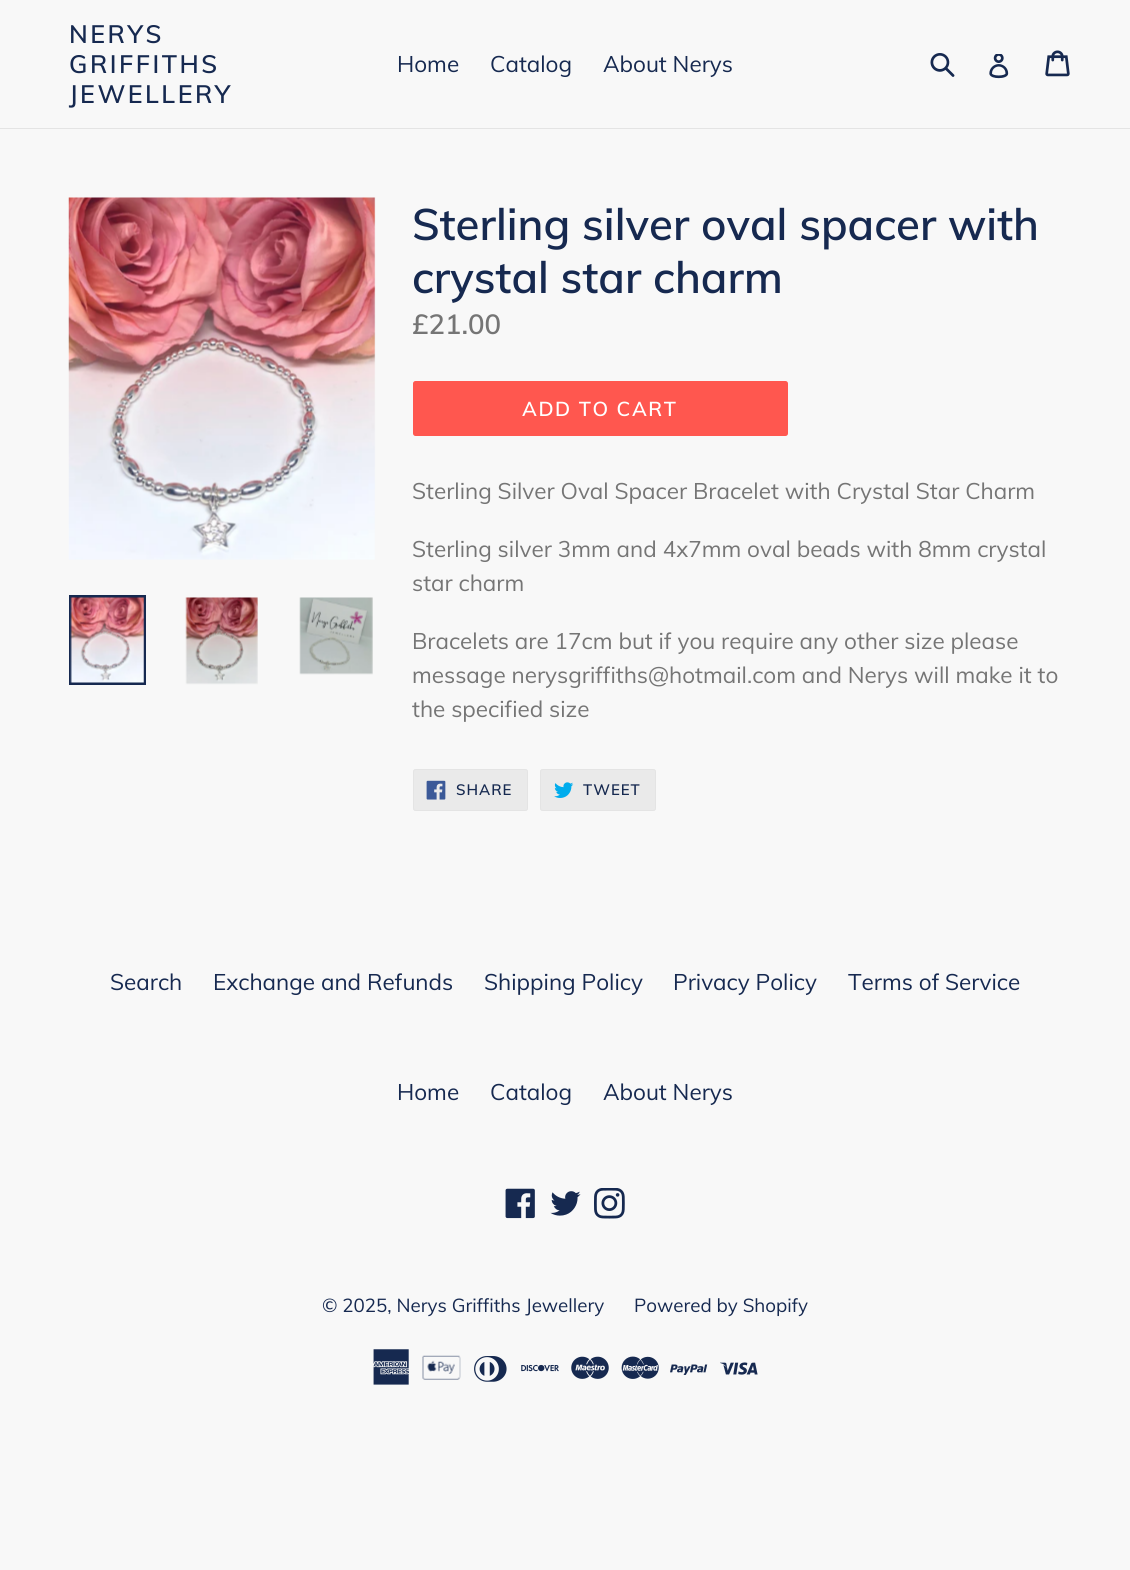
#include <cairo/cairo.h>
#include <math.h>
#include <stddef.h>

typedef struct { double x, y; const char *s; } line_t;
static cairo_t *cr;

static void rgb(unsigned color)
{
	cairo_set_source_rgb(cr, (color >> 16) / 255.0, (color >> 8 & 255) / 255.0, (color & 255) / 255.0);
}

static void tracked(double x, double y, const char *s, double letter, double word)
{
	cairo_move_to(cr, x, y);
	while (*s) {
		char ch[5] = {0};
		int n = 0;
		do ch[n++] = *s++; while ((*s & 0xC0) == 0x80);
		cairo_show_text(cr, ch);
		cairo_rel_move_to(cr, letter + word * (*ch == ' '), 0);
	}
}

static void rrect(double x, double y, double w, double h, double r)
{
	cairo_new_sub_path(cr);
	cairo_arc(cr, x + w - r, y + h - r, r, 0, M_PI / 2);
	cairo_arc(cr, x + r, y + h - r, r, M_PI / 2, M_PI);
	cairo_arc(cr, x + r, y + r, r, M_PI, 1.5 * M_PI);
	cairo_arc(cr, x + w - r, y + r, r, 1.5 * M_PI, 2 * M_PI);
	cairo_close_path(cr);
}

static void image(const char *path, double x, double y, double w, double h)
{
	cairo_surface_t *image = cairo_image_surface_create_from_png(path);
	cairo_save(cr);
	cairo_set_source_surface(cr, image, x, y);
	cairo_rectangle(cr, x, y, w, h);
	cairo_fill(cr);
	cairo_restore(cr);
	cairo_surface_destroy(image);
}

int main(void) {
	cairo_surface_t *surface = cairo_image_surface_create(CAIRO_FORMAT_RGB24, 1130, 1570);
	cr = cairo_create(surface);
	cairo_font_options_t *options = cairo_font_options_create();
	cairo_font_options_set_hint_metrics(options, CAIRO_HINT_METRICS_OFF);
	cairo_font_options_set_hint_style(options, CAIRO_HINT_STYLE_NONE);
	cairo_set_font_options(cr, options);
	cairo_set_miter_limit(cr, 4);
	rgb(0xf8f8f8);
	cairo_paint(cr);
	rgb(0xe4e4e4);
	cairo_rectangle(cr, 0, 128, 1130, 1);
	cairo_fill(cr);
	image("img/1.png", 930, 53, 25, 24);
	image("img/2.png", 989, 54, 20, 25);
	image("img/3.png", 1045, 50, 25, 27);
	image("img/4.png", 68, 197, 308, 363);
	cairo_rectangle(cr, 70.5, 596.5, 74, 87);
	rgb(0x162950);
	cairo_set_line_width(cr, 3);
	cairo_stroke(cr);
	image("img/5.png", 70, 597, 74, 86);
	image("img/6.png", 185, 597, 73, 88);
	image("img/7.png", 299, 597, 74, 78);
	rgb(0xff574f);
	rrect(413, 381, 375, 55, 2.5);
	cairo_fill(cr);
	rgb(0xeaeaea);
	rrect(413.5, 769.5, 114, 41, 2);
	cairo_fill_preserve(cr);
	rgb(0xe4e4e4);
	cairo_set_line_width(cr, 1);
	cairo_stroke(cr);
	image("img/8.png", 426, 780, 20, 20);
	rgb(0xeaeaea);
	rrect(540.5, 769.5, 115, 41, 2);
	cairo_fill_preserve(cr);
	rgb(0xe4e4e4);
	cairo_stroke(cr);
	image("img/9.png", 554, 782, 20, 16);
	image("img/10.png", 505, 1188, 30, 31);
	image("img/11.png", 550, 1191, 31, 25);
	image("img/12.png", 594, 1188, 31, 31);
	image("img/13.png", 373, 1349, 36, 36);
	image("img/14.png", 422, 1355, 39, 25);
	image("img/15.png", 474, 1356, 33, 26);
	image("img/16.png", 521, 1364, 38, 8);
	image("img/17.png", 571, 1356, 38, 23);
	image("img/18.png", 621, 1356, 38, 23);
	image("img/19.png", 670, 1364, 38, 11);
	image("img/20.png", 720, 1362, 38, 13);
	cairo_select_font_face(cr, "Muli SemiBold", CAIRO_FONT_SLANT_NORMAL, CAIRO_FONT_WEIGHT_NORMAL);
	cairo_set_font_size(cr, 25);
	rgb(0x162950);
	{
		static const line_t items[] = {
			{69, 43, "NERYS"},
			{69, 73, "GRIFFITHS"},
			{69, 103, "JEWELLERY"},
		};
		for (size_t i = 0; i < sizeof items / sizeof *items; i++) {
			tracked(items[i].x, items[i].y, items[i].s, 2.5, 0);
		}
	}
	cairo_select_font_face(cr, "Muli", CAIRO_FONT_SLANT_NORMAL, CAIRO_FONT_WEIGHT_NORMAL);
	cairo_set_font_size(cr, 22.5);
	{
		static const line_t items[] = {
			{397, 72, "Home"},
			{490, 72, "Catalog"},
			{603, 72, "About Nerys"},
		};
		for (size_t i = 0; i < sizeof items / sizeof *items; i++) {
			cairo_move_to(cr, items[i].x, items[i].y);
			cairo_show_text(cr, items[i].s);
		}
	}
	cairo_select_font_face(cr, "Muli SemiBold", CAIRO_FONT_SLANT_NORMAL, CAIRO_FONT_WEIGHT_NORMAL);
	cairo_set_font_size(cr, 43.75);
	cairo_move_to(cr, 412, 240);
	cairo_show_text(cr, "Sterling silver oval spacer with");
	cairo_move_to(cr, 412, 293);
	cairo_show_text(cr, "crystal star charm");
	cairo_set_font_size(cr, 27.5);
	rgb(0x757575);
	cairo_move_to(cr, 412, 334);
	cairo_show_text(cr, "£21.00");
	cairo_set_font_size(cr, 20);
	rgb(0xffffff);
	tracked(522, 416, "ADD TO CART", 1.6, 0);
	cairo_select_font_face(cr, "Muli", CAIRO_FONT_SLANT_NORMAL, CAIRO_FONT_WEIGHT_NORMAL);
	cairo_set_font_size(cr, 22.5);
	rgb(0x757575);
	{
		static const line_t items[] = {
			{412, 499, "Sterling Silver Oval Spacer Bracelet with Crystal Star Charm"},
			{412, 557, "Sterling silver 3mm and 4x7mm oval beads with 8mm crystal"},
			{412, 591, "star charm"},
			{412, 649, "Bracelets are 17cm but if you require any other size please"},
			{412, 683, "message nerysgriffiths@hotmail.com and Nerys will make it to"},
			{412, 717, "the specified size"},
		};
		for (size_t i = 0; i < sizeof items / sizeof *items; i++) {
			cairo_move_to(cr, items[i].x, items[i].y);
			cairo_show_text(cr, items[i].s);
		}
	}
	cairo_select_font_face(cr, "Muli SemiBold", CAIRO_FONT_SLANT_NORMAL, CAIRO_FONT_WEIGHT_NORMAL);
	cairo_set_font_size(cr, 15);
	rgb(0x162950);
	tracked(456, 795, "SHARE", 1, 0);
	tracked(583, 795, "TWEET", 1, 0);
	cairo_select_font_face(cr, "Muli", CAIRO_FONT_SLANT_NORMAL, CAIRO_FONT_WEIGHT_NORMAL);
	cairo_set_font_size(cr, 22.5);
	{
		static const line_t items[] = {
			{110, 990, "Search"},
			{213, 990, "Exchange and Refunds"},
			{484, 990, "Shipping Policy"},
			{673, 990, "Privacy Policy"},
			{848, 990, "Terms of Service"},
			{397, 1100, "Home"},
			{490, 1100, "Catalog"},
			{603, 1100, "About Nerys"},
		};
		for (size_t i = 0; i < sizeof items / sizeof *items; i++) {
			cairo_move_to(cr, items[i].x, items[i].y);
			cairo_show_text(cr, items[i].s);
		}
	}
	cairo_set_font_size(cr, 18.75);
	cairo_move_to(cr, 322, 1312);
	cairo_show_text(cr, "© 2025, Nerys Griffiths Jewellery");
	cairo_move_to(cr, 634, 1312);
	cairo_show_text(cr, "Powered by Shopify");
	cairo_surface_write_to_png(surface, "page.png");
	cairo_font_options_destroy(options);
	cairo_destroy(cr);
	cairo_surface_destroy(surface);
	return 0;
}
